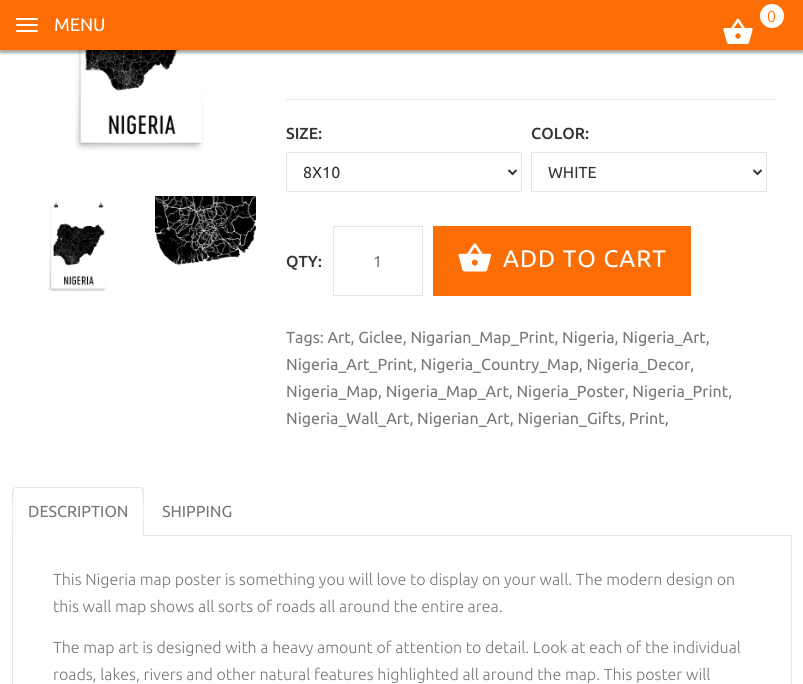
#include <cairo/cairo.h>
#include <math.h>
#include <stddef.h>

typedef struct { double x, y; const char *s; } line_t;
static cairo_t *cr;

static void rgb(unsigned color)
{
	cairo_set_source_rgb(cr, (color >> 16) / 255.0, (color >> 8 & 255) / 255.0, (color & 255) / 255.0);
}

static void tracked(double x, double y, const char *s, double letter, double word)
{
	cairo_move_to(cr, x, y);
	while (*s) {
		char ch[5] = {0};
		int n = 0;
		do ch[n++] = *s++; while ((*s & 0xC0) == 0x80);
		cairo_show_text(cr, ch);
		cairo_rel_move_to(cr, letter + word * (*ch == ' '), 0);
	}
}

static void rrect(double x, double y, double w, double h, double r)
{
	cairo_new_sub_path(cr);
	cairo_arc(cr, x + w - r, y + h - r, r, 0, M_PI / 2);
	cairo_arc(cr, x + r, y + h - r, r, M_PI / 2, M_PI);
	cairo_arc(cr, x + r, y + r, r, M_PI, 1.5 * M_PI);
	cairo_arc(cr, x + w - r, y + r, r, 1.5 * M_PI, 2 * M_PI);
	cairo_close_path(cr);
}

static void soft_shadow(double x, double y, double w, double h, double r, double blur, double alpha)
{
	cairo_push_group_with_content(cr, CAIRO_CONTENT_ALPHA);
	cairo_set_operator(cr, CAIRO_OPERATOR_SOURCE);
	for (int i = 15; i >= -15 && fmin(w, h) + blur * i / 3 > 0; i -= 2) {
		double e = blur * i / 6;
		cairo_set_source_rgba(cr, 0, 0, 0, alpha * erfc((i - 1) / 8.5) / 2);
		rrect(x - e, y - e, w + 2 * e, h + 2 * e, fmax(0, fmin(r + e + blur * .6, fmin(w, h) / 2 + e)));
		cairo_fill(cr);
	}
	cairo_pattern_t *soft = cairo_pop_group(cr);
	cairo_mask(cr, soft);
	cairo_pattern_destroy(soft);
}

static void image(const char *path, double x, double y, double w, double h)
{
	cairo_surface_t *image = cairo_image_surface_create_from_png(path);
	cairo_save(cr);
	cairo_set_source_surface(cr, image, x, y);
	cairo_rectangle(cr, x, y, w, h);
	cairo_fill(cr);
	cairo_restore(cr);
	cairo_surface_destroy(image);
}

int main(void) {
	cairo_surface_t *surface = cairo_image_surface_create(CAIRO_FORMAT_RGB24, 803, 684);
	cr = cairo_create(surface);
	cairo_font_options_t *options = cairo_font_options_create();
	cairo_font_options_set_hint_metrics(options, CAIRO_HINT_METRICS_OFF);
	cairo_font_options_set_hint_style(options, CAIRO_HINT_STYLE_NONE);
	cairo_set_font_options(cr, options);
	cairo_set_miter_limit(cr, 4);
	rgb(0xffffff);
	cairo_paint(cr);
	image("img/2.png", 75, 50, 129, 101);
	rgb(0x000000);
	soft_shadow(0, 1, 803, 52, 0, 1, 0.24);
	soft_shadow(0, 1, 803, 52, 0, 1.5, 0.12);
	rgb(0xfc6d03);
	cairo_rectangle(cr, 0, 0, 803, 50);
	cairo_fill(cr);
	rgb(0xffffff);
	cairo_arc(cr, 772, 16, 12, 0, 2 * M_PI);
	cairo_fill(cr);
	image("img/1.png", 723, 18, 30, 26);
	rrect(16, 18, 22, 2, 1);
	cairo_fill(cr);
	rrect(16, 24, 22, 2, 1);
	cairo_fill(cr);
	rrect(16, 30, 22, 2, 1);
	cairo_fill(cr);
	image("img/3.png", 48, 202, 59, 90);
	image("img/4.png", 155, 196, 101, 69);
	rgb(0xe5e5e5);
	cairo_rectangle(cr, 286, 99, 490, 1);
	cairo_fill(cr);
	cairo_rectangle(cr, 286.5, 152.5, 235, 39);
	cairo_set_line_width(cr, 1);
	cairo_stroke(cr);
	cairo_new_path(cr);
	cairo_move_to(cr, 508.5, 170);
	cairo_line_to(cr, 512.5, 174);
	cairo_line_to(cr, 516.5, 170);
	rgb(0x333333);
	cairo_set_line_width(cr, 2);
	cairo_stroke(cr);
	cairo_rectangle(cr, 531.5, 152.5, 235, 39);
	rgb(0xe5e5e5);
	cairo_set_line_width(cr, 1);
	cairo_stroke(cr);
	cairo_new_path(cr);
	cairo_move_to(cr, 753.5, 170);
	cairo_line_to(cr, 757.5, 174);
	cairo_line_to(cr, 761.5, 170);
	rgb(0x333333);
	cairo_set_line_width(cr, 2);
	cairo_stroke(cr);
	cairo_rectangle(cr, 333.5, 226.5, 89, 69);
	rgb(0xe5e5e5);
	cairo_set_line_width(cr, 1);
	cairo_stroke(cr);
	rgb(0xfc6d03);
	cairo_rectangle(cr, 433, 226, 258, 70);
	cairo_fill(cr);
	image("img/5.png", 458, 243, 34, 29);
	rgb(0xe5e5e5);
	cairo_rectangle(cr, 144, 535, 648, 1);
	cairo_fill(cr);
	cairo_new_path(cr);
	cairo_move_to(cr, 16, 487);
	cairo_line_to(cr, 13, 488);
	cairo_line_to(cr, 14, 489);
	cairo_line_to(cr, 16, 488);
	cairo_line_to(cr, 140, 488);
	cairo_line_to(cr, 142, 489);
	cairo_line_to(cr, 143, 488);
	cairo_line_to(cr, 140, 487);
	cairo_close_path(cr);
	cairo_fill(cr);
	cairo_new_path(cr);
	cairo_move_to(cr, 144, 536);
	cairo_line_to(cr, 144, 491);
	cairo_curve_to(cr, 144, 490, 144, 489, 143, 488);
	cairo_line_to(cr, 142, 489);
	cairo_curve_to(cr, 144, 491, 143, 530, 143, 535);
	cairo_close_path(cr);
	cairo_fill(cr);
	cairo_new_path(cr);
	cairo_move_to(cr, 12, 536);
	cairo_line_to(cr, 13, 535);
	cairo_curve_to(cr, 13, 530, 12, 491, 14, 489);
	cairo_line_to(cr, 13, 488);
	cairo_line_to(cr, 12, 491);
	cairo_close_path(cr);
	cairo_fill(cr);
	cairo_rectangle(cr, 791, 536, 1, 148);
	cairo_fill(cr);
	cairo_rectangle(cr, 12, 536, 1, 148);
	cairo_fill(cr);
	cairo_select_font_face(cr, "Ubuntu Light", CAIRO_FONT_SLANT_NORMAL, CAIRO_FONT_WEIGHT_NORMAL);
	cairo_set_font_size(cr, 16);
	rgb(0xfc6d03);
	cairo_move_to(cr, 767, 22);
	cairo_show_text(cr, "0");
	cairo_select_font_face(cr, "Ubuntu", CAIRO_FONT_SLANT_NORMAL, CAIRO_FONT_WEIGHT_NORMAL);
	cairo_set_font_size(cr, 18);
	rgb(0xffffff);
	cairo_move_to(cr, 54, 31);
	cairo_show_text(cr, "MENU");
	cairo_select_font_face(cr, "Ubuntu Medium", CAIRO_FONT_SLANT_NORMAL, CAIRO_FONT_WEIGHT_NORMAL);
	cairo_set_font_size(cr, 16);
	rgb(0x333333);
	cairo_move_to(cr, 286, 139);
	cairo_show_text(cr, "SIZE:");
	cairo_select_font_face(cr, "Ubuntu", CAIRO_FONT_SLANT_NORMAL, CAIRO_FONT_WEIGHT_NORMAL);
	cairo_move_to(cr, 303, 178);
	cairo_show_text(cr, "8X10");
	cairo_select_font_face(cr, "Ubuntu Medium", CAIRO_FONT_SLANT_NORMAL, CAIRO_FONT_WEIGHT_NORMAL);
	cairo_move_to(cr, 531, 139);
	cairo_show_text(cr, "COLOR:");
	cairo_select_font_face(cr, "Ubuntu", CAIRO_FONT_SLANT_NORMAL, CAIRO_FONT_WEIGHT_NORMAL);
	cairo_move_to(cr, 548, 178);
	cairo_show_text(cr, "WHITE");
	cairo_select_font_face(cr, "Ubuntu Medium", CAIRO_FONT_SLANT_NORMAL, CAIRO_FONT_WEIGHT_NORMAL);
	cairo_move_to(cr, 286, 267);
	cairo_show_text(cr, "QTY:");
	cairo_select_font_face(cr, "Ubuntu", CAIRO_FONT_SLANT_NORMAL, CAIRO_FONT_WEIGHT_NORMAL);
	rgb(0x777777);
	cairo_move_to(cr, 373, 267);
	cairo_show_text(cr, "1");
	cairo_set_font_size(cr, 24);
	rgb(0xffffff);
	tracked(503, 267, "ADD TO CART", 1, 0);
	cairo_set_font_size(cr, 16);
	rgb(0x777777);
	{
		static const line_t items[] = {
			{286, 343, "Tags: Art, Giclee, Nigarian_Map_Print, Nigeria, Nigeria_Art,"},
			{286, 370, "Nigeria_Art_Print, Nigeria_Country_Map, Nigeria_Decor,"},
			{286, 397, "Nigeria_Map, Nigeria_Map_Art, Nigeria_Poster, Nigeria_Print,"},
			{286, 424, "Nigeria_Wall_Art, Nigerian_Art, Nigerian_Gifts, Print,"},
			{28, 517, "DESCRIPTION"},
			{162, 517, "SHIPPING"},
		};
		for (size_t i = 0; i < sizeof items / sizeof *items; i++) {
			cairo_move_to(cr, items[i].x, items[i].y);
			cairo_show_text(cr, items[i].s);
		}
	}
	cairo_select_font_face(cr, "Ubuntu Light", CAIRO_FONT_SLANT_NORMAL, CAIRO_FONT_WEIGHT_NORMAL);
	{
		static const line_t items[] = {
			{53, 585, "This Nigeria map poster is something you will love to display on your wall. The modern design on"},
			{53, 612, "this wall map shows all sorts of roads all around the entire area."},
			{53, 653, "The map art is designed with a heavy amount of attention to detail. Look at each of the individual"},
			{53, 680, "roads, lakes, rivers and other natural features highlighted all around the map. This poster will"},
		};
		for (size_t i = 0; i < sizeof items / sizeof *items; i++) {
			cairo_move_to(cr, items[i].x, items[i].y);
			cairo_show_text(cr, items[i].s);
		}
	}
	cairo_surface_write_to_png(surface, "page.png");
	cairo_font_options_destroy(options);
	cairo_destroy(cr);
	cairo_surface_destroy(surface);
	return 0;
}
